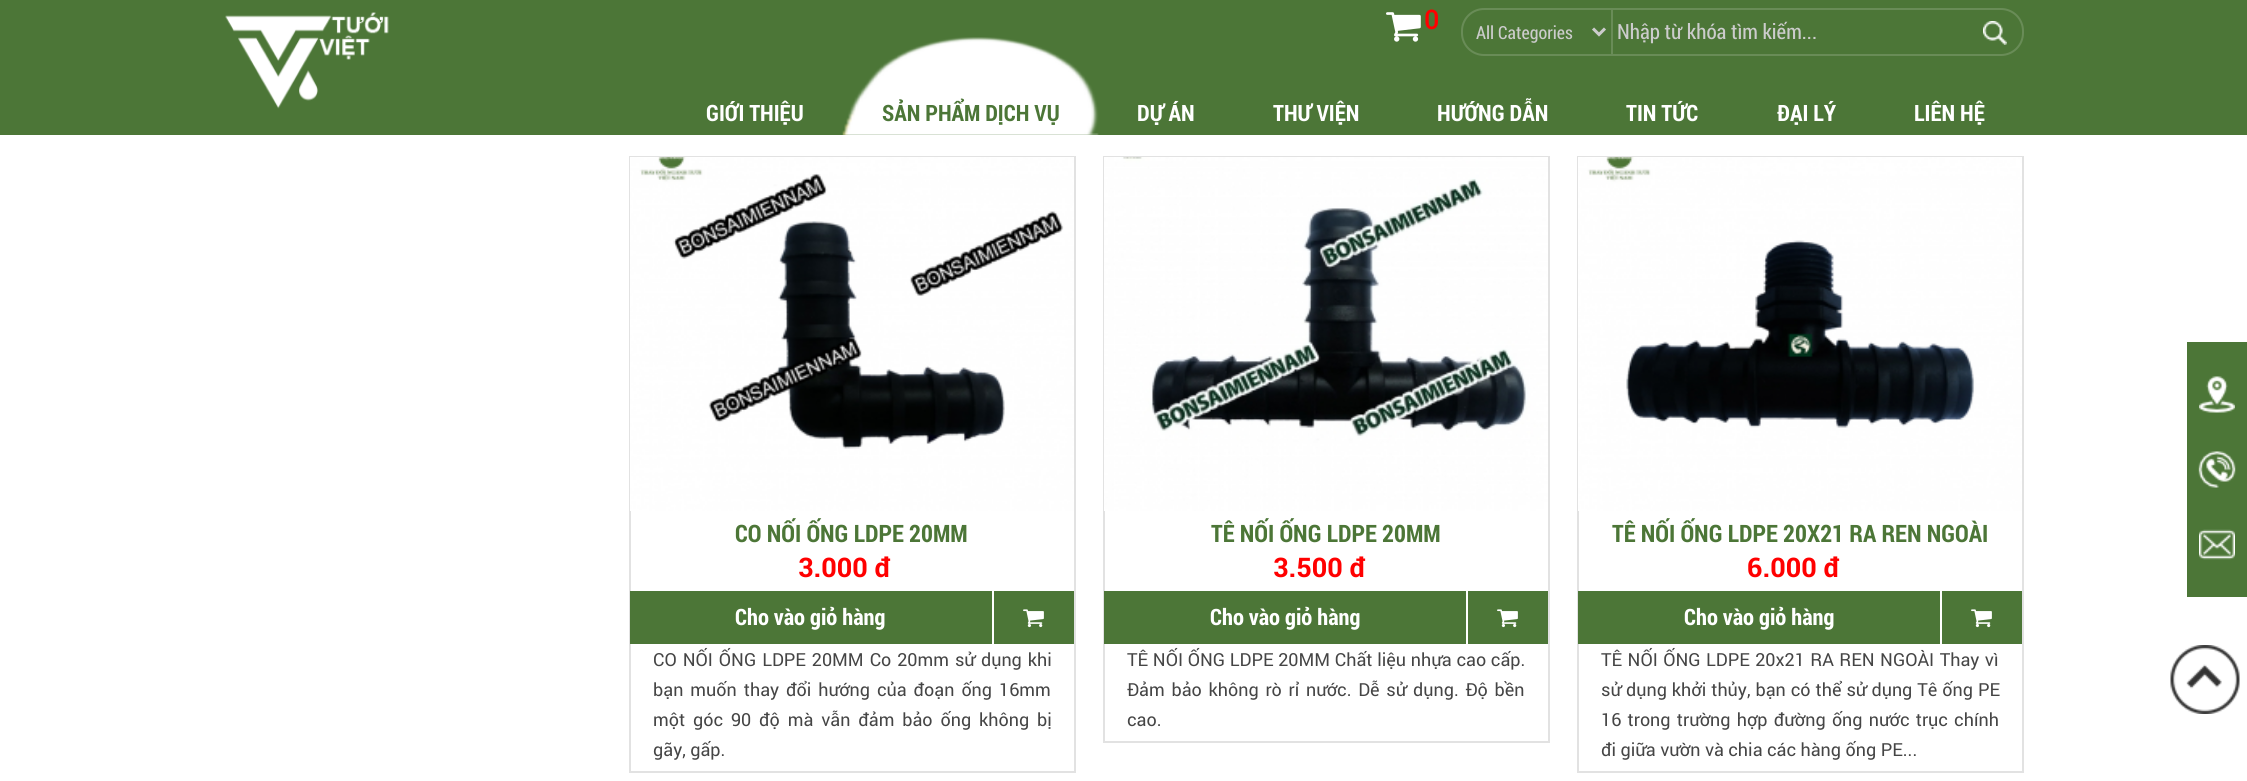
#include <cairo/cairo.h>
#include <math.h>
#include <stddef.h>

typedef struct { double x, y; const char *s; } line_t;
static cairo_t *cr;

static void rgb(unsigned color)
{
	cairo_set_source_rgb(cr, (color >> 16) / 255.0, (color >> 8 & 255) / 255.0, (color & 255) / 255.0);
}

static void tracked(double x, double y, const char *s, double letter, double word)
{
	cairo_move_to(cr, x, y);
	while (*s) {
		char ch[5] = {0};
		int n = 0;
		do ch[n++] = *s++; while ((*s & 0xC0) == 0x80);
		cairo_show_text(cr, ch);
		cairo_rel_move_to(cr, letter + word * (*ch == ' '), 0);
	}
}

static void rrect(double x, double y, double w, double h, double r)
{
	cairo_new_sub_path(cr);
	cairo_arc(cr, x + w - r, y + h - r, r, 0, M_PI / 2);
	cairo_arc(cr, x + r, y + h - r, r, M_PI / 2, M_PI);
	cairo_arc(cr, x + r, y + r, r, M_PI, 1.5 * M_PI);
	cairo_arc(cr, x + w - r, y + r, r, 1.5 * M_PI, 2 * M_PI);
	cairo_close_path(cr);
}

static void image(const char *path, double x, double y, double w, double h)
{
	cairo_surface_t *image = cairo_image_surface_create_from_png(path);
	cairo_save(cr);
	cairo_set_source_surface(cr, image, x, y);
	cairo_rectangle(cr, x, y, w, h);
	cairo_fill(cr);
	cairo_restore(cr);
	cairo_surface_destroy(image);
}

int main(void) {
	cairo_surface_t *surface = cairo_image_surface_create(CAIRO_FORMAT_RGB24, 2247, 781);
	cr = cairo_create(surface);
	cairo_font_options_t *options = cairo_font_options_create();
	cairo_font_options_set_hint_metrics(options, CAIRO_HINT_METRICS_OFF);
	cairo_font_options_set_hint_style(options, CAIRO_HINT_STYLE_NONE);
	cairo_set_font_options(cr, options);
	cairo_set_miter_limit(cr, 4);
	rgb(0xffffff);
	cairo_paint(cr);
	rgb(0x4c7637);
	cairo_rectangle(cr, 0, 0, 2247, 135);
	cairo_fill(cr);
	image("img/1.png", 225, 12, 164, 97);
	image("img/2.png", 1386, 12, 35, 30);
	rrect(1462, 9, 561, 46, 22);
	rgb(0x698c57);
	cairo_stroke(cr);
	cairo_rectangle(cr, 1611, 9, 2, 45);
	cairo_fill(cr);
	cairo_new_path(cr);
	cairo_move_to(cr, 1593, 28.5);
	cairo_line_to(cr, 1599, 34.5);
	cairo_line_to(cr, 1605, 28.5);
	rgb(0xcccccc);
	cairo_set_line_width(cr, 3);
	cairo_stroke(cr);
	image("img/3.png", 1983, 21, 24, 24);
	image("img/4.png", 842, 37, 257, 98);
	rgb(0x4c7637);
	cairo_rectangle(cr, 2187, 342, 60, 255);
	cairo_fill(cr);
	image("img/5.png", 2199, 376, 36, 37);
	image("img/6.png", 2198, 451, 38, 37);
	image("img/7.png", 2199, 529, 36, 31);
	cairo_rectangle(cr, 630, 157, 445, 615);
	rgb(0xe2e2e2);
	cairo_set_line_width(cr, 2);
	cairo_stroke(cr);
	image("img/8.png", 630, 157, 444, 354);
	rgb(0x4c7637);
	cairo_rectangle(cr, 630, 591, 444, 53);
	cairo_fill(cr);
	rgb(0xffffff);
	cairo_rectangle(cr, 992, 591, 2, 53);
	cairo_fill(cr);
	image("img/9.png", 1023, 609, 21, 19);
	cairo_rectangle(cr, 1104, 157, 445, 585);
	rgb(0xe2e2e2);
	cairo_stroke(cr);
	image("img/10.png", 1104, 157, 444, 354);
	rgb(0x4c7637);
	cairo_rectangle(cr, 1104, 591, 444, 53);
	cairo_fill(cr);
	rgb(0xffffff);
	cairo_rectangle(cr, 1466, 591, 2, 53);
	cairo_fill(cr);
	image("img/9.png", 1497, 609, 21, 19);
	cairo_rectangle(cr, 1578, 157, 445, 615);
	rgb(0xe2e2e2);
	cairo_stroke(cr);
	image("img/11.png", 1578, 157, 444, 354);
	rgb(0x4c7637);
	cairo_rectangle(cr, 1578, 591, 444, 53);
	cairo_fill(cr);
	rgb(0xffffff);
	cairo_rectangle(cr, 1940, 591, 2, 53);
	cairo_fill(cr);
	image("img/9.png", 1971, 609, 21, 19);
	image("img/12.png", 2170, 645, 70, 69);
	cairo_select_font_face(cr, "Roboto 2", CAIRO_FONT_SLANT_NORMAL, CAIRO_FONT_WEIGHT_BOLD);
	cairo_set_font_size(cr, 26);
	rgb(0xff0000);
	cairo_move_to(cr, 1424, 29);
	cairo_show_text(cr, "0");
	cairo_select_font_face(cr, "Roboto Condensed", CAIRO_FONT_SLANT_NORMAL, CAIRO_FONT_WEIGHT_NORMAL);
	cairo_set_font_size(cr, 18);
	rgb(0xcccccc);
	cairo_move_to(cr, 1476, 39);
	cairo_show_text(cr, "All Categories");
	cairo_set_font_size(cr, 21);
	cairo_move_to(cr, 1617, 39);
	cairo_show_text(cr, "Nhập từ khóa tìm kiếm...");
	cairo_select_font_face(cr, "Roboto Condensed", CAIRO_FONT_SLANT_NORMAL, CAIRO_FONT_WEIGHT_BOLD);
	cairo_set_font_size(cr, 22.5);
	rgb(0xffffff);
	cairo_move_to(cr, 706, 121);
	cairo_show_text(cr, "GIỚI THIỆU");
	rgb(0x4c7637);
	cairo_move_to(cr, 882, 121);
	cairo_show_text(cr, "SẢN PHẨM DỊCH VỤ");
	rgb(0xffffff);
	{
		static const line_t items[] = {
			{1137, 121, "DỰ ÁN"},
			{1273, 121, "THƯ VIỆN"},
			{1437, 121, "HƯỚNG DẪN"},
			{1626, 121, "TIN TỨC"},
			{1777, 121, "ĐẠI LÝ"},
			{1914, 121, "LIÊN HỆ"},
		};
		for (size_t i = 0; i < sizeof items / sizeof *items; i++) {
			cairo_move_to(cr, items[i].x, items[i].y);
			cairo_show_text(cr, items[i].s);
		}
	}
	cairo_set_font_size(cr, 24);
	rgb(0x4c7637);
	cairo_move_to(cr, 735, 542);
	cairo_show_text(cr, "CO NỐI ỐNG LDPE 20MM");
	cairo_select_font_face(cr, "Roboto", CAIRO_FONT_SLANT_NORMAL, CAIRO_FONT_WEIGHT_BOLD);
	cairo_set_font_size(cr, 27);
	rgb(0xff0000);
	cairo_move_to(cr, 798, 577);
	cairo_show_text(cr, "3.000 đ");
	cairo_select_font_face(cr, "Roboto Condensed", CAIRO_FONT_SLANT_NORMAL, CAIRO_FONT_WEIGHT_BOLD);
	cairo_set_font_size(cr, 22.5);
	rgb(0xffffff);
	cairo_move_to(cr, 735, 625);
	cairo_show_text(cr, "Cho vào giỏ hàng");
	cairo_select_font_face(cr, "Roboto", CAIRO_FONT_SLANT_NORMAL, CAIRO_FONT_WEIGHT_NORMAL);
	cairo_set_font_size(cr, 18);
	rgb(0x454545);
	tracked(653, 666, "CO NỐI ỐNG LDPE 20MM Co 20mm sử dụng khi", 0, 1.5);
	tracked(653, 696, "bạn muốn thay đổi hướng của đoạn ống 16mm", 0, 2.5);
	tracked(653, 726, "một góc 90 độ mà vẫn đảm bảo ống không bị", 0, 3.4);
	cairo_move_to(cr, 653, 756);
	cairo_show_text(cr, "gãy, gấp.");
	cairo_select_font_face(cr, "Roboto Condensed", CAIRO_FONT_SLANT_NORMAL, CAIRO_FONT_WEIGHT_BOLD);
	cairo_set_font_size(cr, 24);
	rgb(0x4c7637);
	cairo_move_to(cr, 1211, 542);
	cairo_show_text(cr, "TÊ NỐI ỐNG LDPE 20MM");
	cairo_select_font_face(cr, "Roboto", CAIRO_FONT_SLANT_NORMAL, CAIRO_FONT_WEIGHT_BOLD);
	cairo_set_font_size(cr, 27);
	rgb(0xff0000);
	cairo_move_to(cr, 1273, 577);
	cairo_show_text(cr, "3.500 đ");
	cairo_select_font_face(cr, "Roboto Condensed", CAIRO_FONT_SLANT_NORMAL, CAIRO_FONT_WEIGHT_BOLD);
	cairo_set_font_size(cr, 22.5);
	rgb(0xffffff);
	cairo_move_to(cr, 1210, 625);
	cairo_show_text(cr, "Cho vào giỏ hàng");
	cairo_select_font_face(cr, "Roboto", CAIRO_FONT_SLANT_NORMAL, CAIRO_FONT_WEIGHT_NORMAL);
	cairo_set_font_size(cr, 18);
	rgb(0x454545);
	tracked(1127, 666, "TÊ NỐI ỐNG LDPE 20MM Chất liệu nhựa cao cấp.", 0, 0.25);
	tracked(1127, 696, "Đảm bảo không rò rỉ nước. Dễ sử dụng. Độ bền", 0, 2.25);
	cairo_move_to(cr, 1127, 726);
	cairo_show_text(cr, "cao.");
	cairo_select_font_face(cr, "Roboto Condensed", CAIRO_FONT_SLANT_NORMAL, CAIRO_FONT_WEIGHT_BOLD);
	cairo_set_font_size(cr, 24);
	rgb(0x4c7637);
	cairo_move_to(cr, 1612, 542);
	cairo_show_text(cr, "TÊ NỐI ỐNG LDPE 20X21 RA REN NGOÀI");
	cairo_select_font_face(cr, "Roboto", CAIRO_FONT_SLANT_NORMAL, CAIRO_FONT_WEIGHT_BOLD);
	cairo_set_font_size(cr, 27);
	rgb(0xff0000);
	cairo_move_to(cr, 1747, 577);
	cairo_show_text(cr, "6.000 đ");
	cairo_select_font_face(cr, "Roboto Condensed", CAIRO_FONT_SLANT_NORMAL, CAIRO_FONT_WEIGHT_BOLD);
	cairo_set_font_size(cr, 22.5);
	rgb(0xffffff);
	cairo_move_to(cr, 1684, 625);
	cairo_show_text(cr, "Cho vào giỏ hàng");
	cairo_select_font_face(cr, "Roboto", CAIRO_FONT_SLANT_NORMAL, CAIRO_FONT_WEIGHT_NORMAL);
	cairo_set_font_size(cr, 18);
	rgb(0x454545);
	tracked(1601, 666, "TÊ NỐI ỐNG LDPE 20x21 RA REN NGOÀI Thay vì", 0, 1);
	tracked(1601, 696, "sử dụng khởi thủy, bạn có thể sử dụng Tê ống PE", 0, 0.5);
	tracked(1601, 726, "16 trong trường hợp đường ống nước trục chính", 0, 1.75);
	cairo_move_to(cr, 1601, 756);
	cairo_show_text(cr, "đi giữa vườn và chia các hàng ống PE...");
	cairo_surface_write_to_png(surface, "page.png");
	cairo_font_options_destroy(options);
	cairo_destroy(cr);
	cairo_surface_destroy(surface);
	return 0;
}
